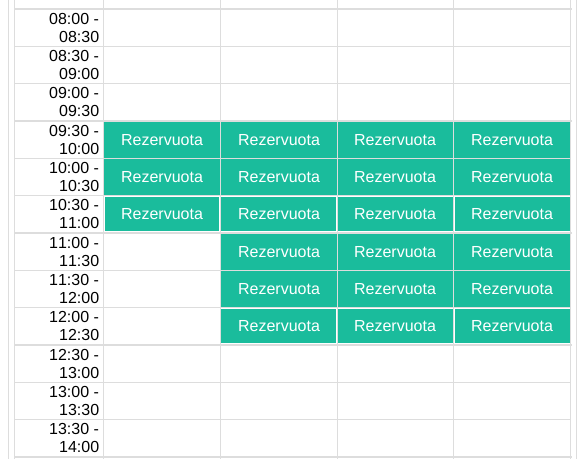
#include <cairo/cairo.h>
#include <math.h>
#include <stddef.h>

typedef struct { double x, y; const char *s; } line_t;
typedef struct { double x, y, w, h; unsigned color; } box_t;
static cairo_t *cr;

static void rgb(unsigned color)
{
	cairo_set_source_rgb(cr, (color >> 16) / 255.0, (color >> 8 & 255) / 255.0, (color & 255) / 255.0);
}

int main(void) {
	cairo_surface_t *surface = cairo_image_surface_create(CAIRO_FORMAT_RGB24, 585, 459);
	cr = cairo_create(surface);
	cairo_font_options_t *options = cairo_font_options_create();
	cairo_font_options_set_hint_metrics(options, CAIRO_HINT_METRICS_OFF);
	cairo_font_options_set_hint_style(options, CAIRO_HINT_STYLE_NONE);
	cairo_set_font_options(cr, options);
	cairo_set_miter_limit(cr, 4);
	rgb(0xffffff);
	cairo_paint(cr);
	cairo_rectangle(cr, 8.5, -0.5, 568, 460);
	rgb(0xdddddd);
	cairo_set_line_width(cr, 1);
	cairo_stroke(cr);
	{
		static const box_t items[] = {
			{453, 46, 118, 1, 0xdddddd},
			{453, 83, 118, 1, 0xdddddd},
			{453, 158, 118, 1, 0xdddddd},
			{453, 195, 118, 1, 0xdddddd},
			{453, 270, 118, 1, 0xdddddd},
			{453, 307, 118, 1, 0xdddddd},
			{453, 382, 118, 1, 0xdddddd},
			{453, 419, 118, 1, 0xdddddd},
			{453, 457, 1, 2, 0xdddddd},
			{453, 419, 1, 39, 0xdddddd},
			{337, 419, 117, 1, 0xdddddd},
			{453, 382, 1, 38, 0xdddddd},
			{337, 382, 117, 1, 0xdddddd},
			{453, 345, 1, 38, 0xdddddd},
			{453, 307, 1, 39, 0xdddddd},
			{337, 307, 117, 1, 0xdddddd},
			{453, 270, 1, 38, 0xdddddd},
			{337, 270, 117, 1, 0xdddddd},
			{453, 233, 1, 38, 0xdddddd},
			{453, 195, 1, 39, 0xdddddd},
			{337, 195, 117, 1, 0xdddddd},
			{453, 158, 1, 38, 0xdddddd},
			{337, 158, 117, 1, 0xdddddd},
			{453, 121, 1, 38, 0xdddddd},
			{453, 83, 1, 39, 0xdddddd},
			{337, 83, 117, 1, 0xdddddd},
			{453, 46, 1, 38, 0xdddddd},
			{337, 46, 117, 1, 0xdddddd},
			{453, 0, 1, 47, 0xdddddd},
			{337, 457, 1, 2, 0xdddddd},
			{337, 419, 1, 39, 0xdddddd},
			{220, 419, 118, 1, 0xdddddd},
			{337, 382, 1, 38, 0xdddddd},
			{220, 382, 118, 1, 0xdddddd},
			{337, 345, 1, 38, 0xdddddd},
			{337, 307, 1, 39, 0xdddddd},
			{220, 307, 118, 1, 0xdddddd},
			{337, 270, 1, 38, 0xdddddd},
			{220, 270, 118, 1, 0xdddddd},
			{337, 233, 1, 38, 0xdddddd},
			{337, 195, 1, 39, 0xdddddd},
			{220, 195, 118, 1, 0xdddddd},
			{337, 158, 1, 38, 0xdddddd},
			{220, 158, 118, 1, 0xdddddd},
			{337, 121, 1, 38, 0xdddddd},
			{337, 83, 1, 39, 0xdddddd},
			{220, 83, 118, 1, 0xdddddd},
			{337, 46, 1, 38, 0xdddddd},
			{220, 46, 118, 1, 0xdddddd},
			{220, 457, 1, 2, 0xdddddd},
			{220, 419, 1, 39, 0xdddddd},
			{103, 419, 118, 1, 0xdddddd},
			{220, 382, 1, 38, 0xdddddd},
			{103, 382, 118, 1, 0xdddddd},
			{220, 345, 1, 38, 0xdddddd},
			{220, 307, 1, 39, 0xdddddd},
			{103, 307, 118, 1, 0xdddddd},
			{220, 270, 1, 38, 0xdddddd},
			{103, 270, 118, 1, 0xdddddd},
			{220, 233, 1, 38, 0xdddddd},
			{220, 195, 1, 39, 0xdddddd},
			{103, 195, 118, 1, 0xdddddd},
			{220, 158, 1, 38, 0xdddddd},
			{103, 158, 118, 1, 0xdddddd},
			{220, 121, 1, 38, 0xdddddd},
			{220, 83, 1, 39, 0xdddddd},
			{103, 83, 118, 1, 0xdddddd},
			{220, 46, 1, 38, 0xdddddd},
			{103, 46, 118, 1, 0xdddddd},
			{103, 457, 1, 2, 0xdddddd},
			{103, 419, 1, 39, 0xdddddd},
			{14, 419, 90, 1, 0xdddddd},
			{103, 382, 1, 38, 0xdddddd},
			{14, 382, 90, 1, 0xdddddd},
			{103, 345, 1, 38, 0xdddddd},
			{103, 307, 1, 39, 0xdddddd},
			{14, 307, 90, 1, 0xdddddd},
			{103, 270, 1, 38, 0xdddddd},
			{14, 270, 90, 1, 0xdddddd},
			{103, 233, 1, 38, 0xdddddd},
			{103, 195, 1, 39, 0xdddddd},
			{14, 195, 90, 1, 0xdddddd},
			{103, 158, 1, 38, 0xdddddd},
			{14, 158, 90, 1, 0xdddddd},
			{103, 121, 1, 38, 0xdddddd},
			{103, 83, 1, 39, 0xdddddd},
			{14, 83, 90, 1, 0xdddddd},
			{103, 46, 1, 38, 0xdddddd},
			{14, 46, 90, 1, 0xdddddd},
			{103, 0, 1, 47, 0xdddddd},
			{220, 0, 1, 47, 0xdddddd},
			{337, 0, 1, 47, 0xdddddd},
			{14, 457, 1, 2, 0xdddddd},
			{14, 419, 1, 39, 0xdddddd},
			{14, 345, 1, 75, 0xdddddd},
			{14, 307, 1, 39, 0xdddddd},
			{14, 233, 1, 75, 0xdddddd},
			{14, 195, 1, 39, 0xdddddd},
			{14, 121, 1, 75, 0xdddddd},
			{14, 83, 1, 39, 0xdddddd},
			{14, 0, 1, 84, 0xdddddd},
			{570, 457, 1, 2, 0xdddddd},
			{570, 419, 1, 39, 0xdddddd},
			{570, 345, 1, 75, 0xdddddd},
			{570, 307, 1, 39, 0xdddddd},
			{570, 233, 1, 75, 0xdddddd},
			{570, 195, 1, 39, 0xdddddd},
			{570, 121, 1, 75, 0xdddddd},
			{570, 83, 1, 39, 0xdddddd},
			{570, 0, 1, 84, 0xdddddd},
			{14, 8, 558, 2, 0xdddddd},
			{14, 120, 558, 2, 0xdddddd},
			{104, 122, 116, 36, 0x1abc9c},
			{221, 122, 116, 36, 0x1abc9c},
			{338, 122, 115, 36, 0x1abc9c},
			{454, 122, 116, 36, 0x1abc9c},
			{104, 159, 116, 36, 0x1abc9c},
			{221, 159, 116, 36, 0x1abc9c},
			{338, 159, 115, 36, 0x1abc9c},
			{454, 159, 116, 36, 0x1abc9c},
			{105, 197, 114, 34, 0x1abc9c},
			{221, 197, 115, 34, 0x1abc9c},
			{338, 197, 115, 34, 0x1abc9c},
			{455, 197, 115, 34, 0x1abc9c},
			{14, 232, 558, 2, 0xdddddd},
			{221, 234, 116, 36, 0x1abc9c},
			{338, 234, 115, 36, 0x1abc9c},
			{454, 234, 116, 36, 0x1abc9c},
			{221, 271, 116, 36, 0x1abc9c},
			{338, 271, 115, 36, 0x1abc9c},
			{454, 271, 116, 36, 0x1abc9c},
			{221, 309, 115, 34, 0x1abc9c},
			{338, 309, 115, 34, 0x1abc9c},
			{455, 309, 115, 34, 0x1abc9c},
			{14, 344, 558, 2, 0xdddddd},
			{14, 456, 558, 2, 0xdddddd},
		};
		for (size_t i = 0; i < sizeof items / sizeof *items; i++) {
			rgb(items[i].color);
			cairo_rectangle(cr, items[i].x, items[i].y, items[i].w, items[i].h);
			cairo_fill(cr);
		}
	}
	cairo_select_font_face(cr, "Liberation Sans", CAIRO_FONT_SLANT_NORMAL, CAIRO_FONT_WEIGHT_NORMAL);
	cairo_set_font_size(cr, 16);
	rgb(0x000000);
	{
		static const line_t items[] = {
			{49, 24, "08:00 -"},
			{59, 42, "08:30"},
			{49, 61, "08:30 -"},
			{59, 79, "09:00"},
			{49, 98, "09:00 -"},
			{59, 116, "09:30"},
			{49, 136, "09:30 -"},
			{59, 154, "10:00"},
		};
		for (size_t i = 0; i < sizeof items / sizeof *items; i++) {
			cairo_move_to(cr, items[i].x, items[i].y);
			cairo_show_text(cr, items[i].s);
		}
	}
	rgb(0xffffff);
	{
		static const line_t items[] = {
			{121, 145, "Rezervuota"},
			{238, 145, "Rezervuota"},
			{354, 145, "Rezervuota"},
			{471, 145, "Rezervuota"},
		};
		for (size_t i = 0; i < sizeof items / sizeof *items; i++) {
			cairo_move_to(cr, items[i].x, items[i].y);
			cairo_show_text(cr, items[i].s);
		}
	}
	rgb(0x000000);
	cairo_move_to(cr, 49, 173);
	cairo_show_text(cr, "10:00 -");
	cairo_move_to(cr, 59, 191);
	cairo_show_text(cr, "10:30");
	rgb(0xffffff);
	{
		static const line_t items[] = {
			{121, 182, "Rezervuota"},
			{238, 182, "Rezervuota"},
			{354, 182, "Rezervuota"},
			{471, 182, "Rezervuota"},
		};
		for (size_t i = 0; i < sizeof items / sizeof *items; i++) {
			cairo_move_to(cr, items[i].x, items[i].y);
			cairo_show_text(cr, items[i].s);
		}
	}
	rgb(0x000000);
	cairo_move_to(cr, 49, 210);
	cairo_show_text(cr, "10:30 -");
	cairo_move_to(cr, 59, 228);
	cairo_show_text(cr, "11:00");
	rgb(0xffffff);
	{
		static const line_t items[] = {
			{121, 219, "Rezervuota"},
			{238, 219, "Rezervuota"},
			{354, 219, "Rezervuota"},
			{471, 219, "Rezervuota"},
		};
		for (size_t i = 0; i < sizeof items / sizeof *items; i++) {
			cairo_move_to(cr, items[i].x, items[i].y);
			cairo_show_text(cr, items[i].s);
		}
	}
	rgb(0x000000);
	cairo_move_to(cr, 49, 248);
	cairo_show_text(cr, "11:00 -");
	cairo_move_to(cr, 59, 266);
	cairo_show_text(cr, "11:30");
	rgb(0xffffff);
	{
		static const line_t items[] = {
			{238, 257, "Rezervuota"},
			{354, 257, "Rezervuota"},
			{471, 257, "Rezervuota"},
		};
		for (size_t i = 0; i < sizeof items / sizeof *items; i++) {
			cairo_move_to(cr, items[i].x, items[i].y);
			cairo_show_text(cr, items[i].s);
		}
	}
	rgb(0x000000);
	cairo_move_to(cr, 49, 285);
	cairo_show_text(cr, "11:30 -");
	cairo_move_to(cr, 59, 303);
	cairo_show_text(cr, "12:00");
	rgb(0xffffff);
	{
		static const line_t items[] = {
			{238, 294, "Rezervuota"},
			{354, 294, "Rezervuota"},
			{471, 294, "Rezervuota"},
		};
		for (size_t i = 0; i < sizeof items / sizeof *items; i++) {
			cairo_move_to(cr, items[i].x, items[i].y);
			cairo_show_text(cr, items[i].s);
		}
	}
	rgb(0x000000);
	cairo_move_to(cr, 49, 322);
	cairo_show_text(cr, "12:00 -");
	cairo_move_to(cr, 59, 340);
	cairo_show_text(cr, "12:30");
	rgb(0xffffff);
	{
		static const line_t items[] = {
			{238, 331, "Rezervuota"},
			{354, 331, "Rezervuota"},
			{471, 331, "Rezervuota"},
		};
		for (size_t i = 0; i < sizeof items / sizeof *items; i++) {
			cairo_move_to(cr, items[i].x, items[i].y);
			cairo_show_text(cr, items[i].s);
		}
	}
	rgb(0x000000);
	{
		static const line_t items[] = {
			{49, 360, "12:30 -"},
			{59, 378, "13:00"},
			{49, 397, "13:00 -"},
			{59, 415, "13:30"},
			{49, 434, "13:30 -"},
			{59, 452, "14:00"},
		};
		for (size_t i = 0; i < sizeof items / sizeof *items; i++) {
			cairo_move_to(cr, items[i].x, items[i].y);
			cairo_show_text(cr, items[i].s);
		}
	}
	cairo_surface_write_to_png(surface, "page.png");
	cairo_font_options_destroy(options);
	cairo_destroy(cr);
	cairo_surface_destroy(surface);
	return 0;
}
